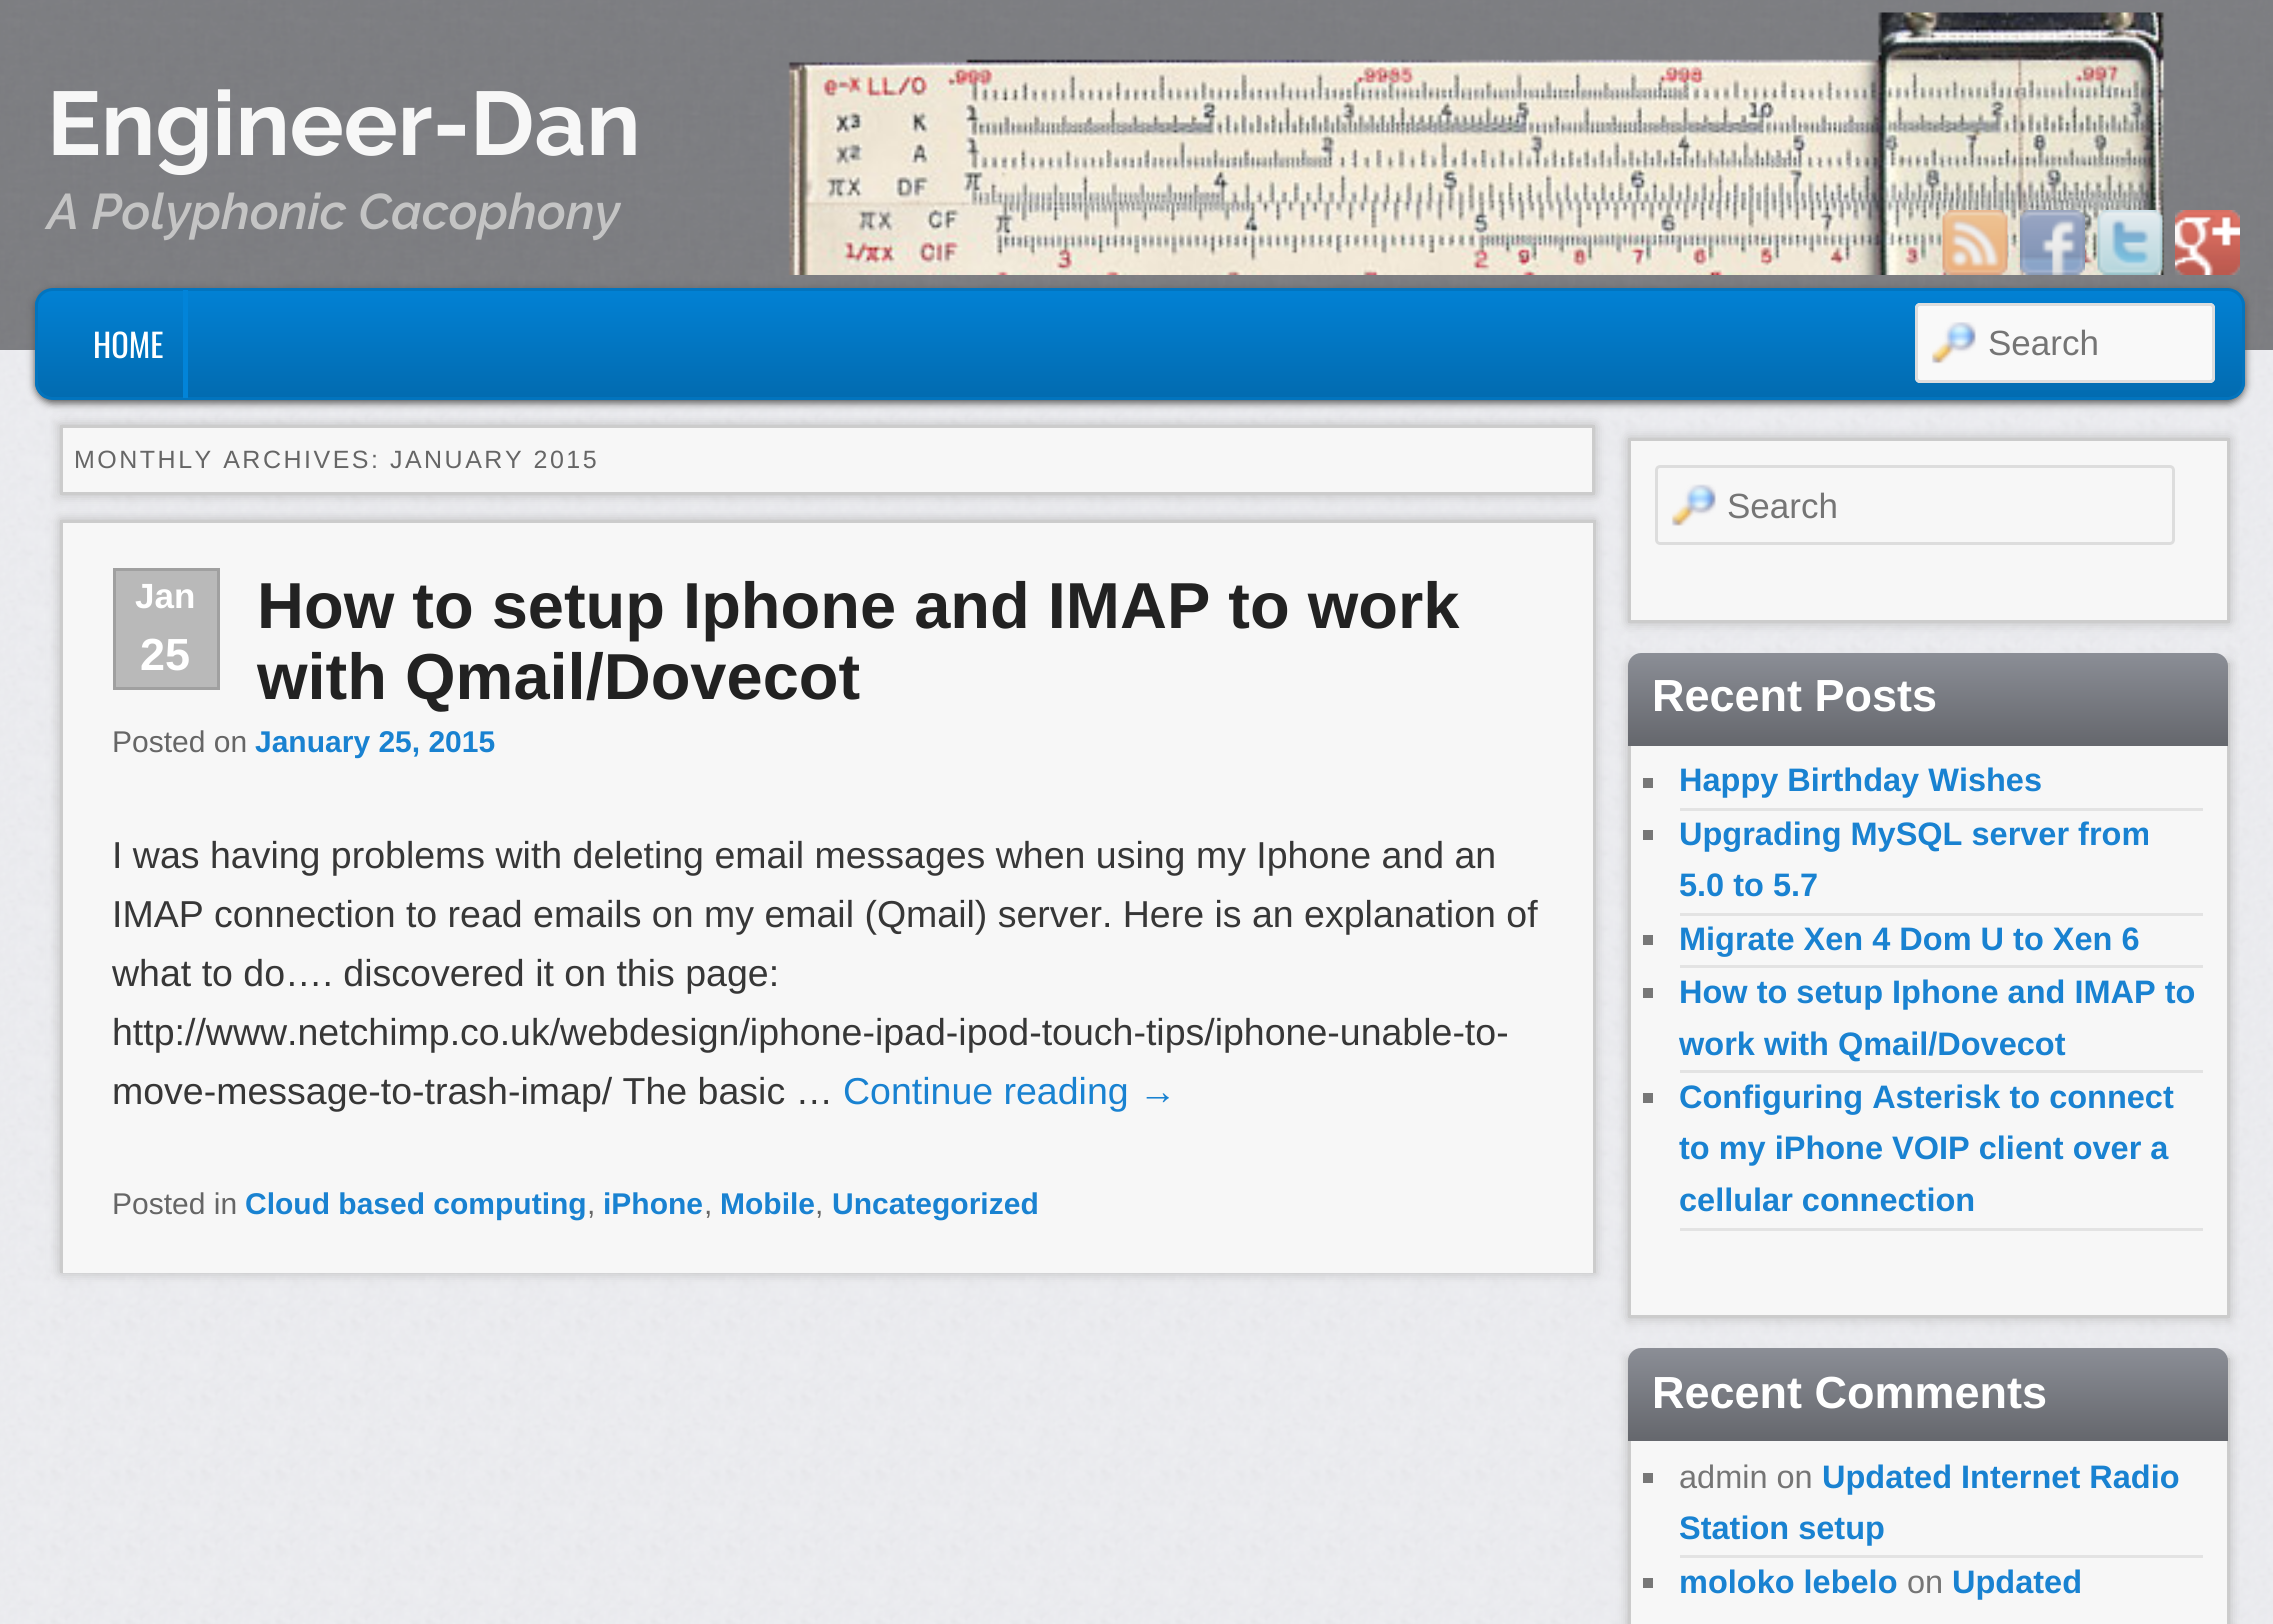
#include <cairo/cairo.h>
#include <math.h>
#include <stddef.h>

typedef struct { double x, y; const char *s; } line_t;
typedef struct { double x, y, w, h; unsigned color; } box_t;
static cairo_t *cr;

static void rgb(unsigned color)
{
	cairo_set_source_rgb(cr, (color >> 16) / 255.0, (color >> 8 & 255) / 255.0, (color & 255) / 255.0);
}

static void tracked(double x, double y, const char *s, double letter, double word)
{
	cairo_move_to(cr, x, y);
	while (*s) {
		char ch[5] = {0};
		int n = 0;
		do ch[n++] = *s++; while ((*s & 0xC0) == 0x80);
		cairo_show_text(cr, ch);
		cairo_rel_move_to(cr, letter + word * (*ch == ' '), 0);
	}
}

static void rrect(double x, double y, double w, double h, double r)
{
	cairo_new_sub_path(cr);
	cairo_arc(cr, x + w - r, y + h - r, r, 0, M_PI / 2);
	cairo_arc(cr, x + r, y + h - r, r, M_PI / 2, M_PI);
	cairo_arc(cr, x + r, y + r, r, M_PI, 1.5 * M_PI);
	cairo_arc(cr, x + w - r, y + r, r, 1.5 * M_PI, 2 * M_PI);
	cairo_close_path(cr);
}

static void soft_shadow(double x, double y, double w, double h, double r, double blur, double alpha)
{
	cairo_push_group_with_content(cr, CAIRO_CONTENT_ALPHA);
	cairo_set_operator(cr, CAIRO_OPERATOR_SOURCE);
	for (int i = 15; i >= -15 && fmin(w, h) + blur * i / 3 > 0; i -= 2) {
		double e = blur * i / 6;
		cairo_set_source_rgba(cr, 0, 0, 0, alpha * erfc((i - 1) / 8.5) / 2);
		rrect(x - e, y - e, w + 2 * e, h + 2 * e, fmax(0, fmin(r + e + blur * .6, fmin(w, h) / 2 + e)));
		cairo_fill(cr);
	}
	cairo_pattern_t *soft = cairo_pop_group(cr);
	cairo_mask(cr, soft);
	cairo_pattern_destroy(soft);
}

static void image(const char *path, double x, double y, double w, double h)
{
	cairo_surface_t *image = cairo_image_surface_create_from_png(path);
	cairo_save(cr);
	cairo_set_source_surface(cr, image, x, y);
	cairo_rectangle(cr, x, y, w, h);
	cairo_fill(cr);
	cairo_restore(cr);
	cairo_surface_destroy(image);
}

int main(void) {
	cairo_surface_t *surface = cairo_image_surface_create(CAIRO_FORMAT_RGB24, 2273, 1624);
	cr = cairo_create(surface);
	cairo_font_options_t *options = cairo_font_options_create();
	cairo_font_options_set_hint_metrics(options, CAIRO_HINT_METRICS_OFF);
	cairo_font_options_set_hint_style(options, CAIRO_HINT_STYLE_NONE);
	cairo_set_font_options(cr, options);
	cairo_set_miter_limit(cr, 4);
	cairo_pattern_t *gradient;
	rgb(0xffffff);
	cairo_paint(cr);
	image("img/1.png", 0, 350, 2273, 1274);
	image("img/2.png", 0, 0, 2273, 350);
	image("img/3.png", 788, 12, 1377, 263);
	image("img/4.png", 1942, 210, 66, 65);
	image("img/5.png", 2020, 210, 65, 65);
	image("img/6.png", 2097, 210, 66, 65);
	image("img/7.png", 2175, 210, 65, 65);
	rgb(0x555555);
	soft_shadow(35, 290, 2210, 113, 18, 4, 1);
	cairo_save(cr);
	rrect(35, 288, 2210, 112, 18);
	cairo_clip(cr);
	gradient = cairo_pattern_create_linear(1140, 290, 1140, 398);
	cairo_pattern_add_color_stop_rgba(gradient, 0, 0.008, 0.506, 0.831, 1);
	cairo_pattern_add_color_stop_rgba(gradient, 1, 0.008, 0.42, 0.69, 1);
	cairo_set_source(cr, gradient);
	cairo_pattern_destroy(gradient);
	cairo_rectangle(cr, 35, 290, 2210, 108);
	cairo_fill(cr);
	cairo_restore(cr);
	rrect(36.5, 289.5, 2207, 109, 16.5);
	rgb(0x0274be);
	cairo_set_line_width(cr, 3);
	cairo_stroke(cr);
	rgb(0x0284d9);
	cairo_rectangle(cr, 183, 290, 5, 108);
	cairo_fill(cr);
	rgb(0xf9f9f9);
	rrect(1915, 303, 300, 80, 5);
	cairo_fill(cr);
	image("img/8.png", 1931, 322, 45, 42);
	rrect(1916.5, 304.5, 297, 77, 3.5);
	rgb(0xdddddd);
	cairo_stroke(cr);
	rgb(0xbbbbbb);
	soft_shadow(60, 425, 1535, 70, 0, 6, 1);
	rgb(0xf7f7f7);
	cairo_rectangle(cr, 61.5, 426.5, 1532, 67);
	cairo_fill_preserve(cr);
	rgb(0xcccccc);
	cairo_stroke(cr);
	rgb(0xbbbbbb);
	soft_shadow(60, 520, 1535, 753, 0, 6, 1);
	{
		static const box_t items[] = {
			{63, 523, 1530, 750, 0xf7f7f7},
			{60, 520, 1535, 3, 0xcccccc},
			{1593, 520, 3, 753, 0xcccccc},
			{60, 520, 3, 753, 0xcccccc},
		};
		for (size_t i = 0; i < sizeof items / sizeof *items; i++) {
			rgb(items[i].color);
			cairo_rectangle(cr, items[i].x, items[i].y, items[i].w, items[i].h);
			cairo_fill(cr);
		}
	}
	rgb(0xb9b9b9);
	cairo_rectangle(cr, 114.5, 569.5, 104, 119);
	cairo_fill_preserve(cr);
	rgb(0xa0a0a0);
	cairo_stroke(cr);
	cairo_save(cr);
	cairo_rectangle(cr, 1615, 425, 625, 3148);
	cairo_clip(cr);
	rgb(0xbbbbbb);
	soft_shadow(1628, 438, 602, 185, 0, 6, 1);
	cairo_restore(cr);
	rgb(0xf7f7f7);
	cairo_rectangle(cr, 1629.5, 439.5, 599, 182);
	cairo_fill_preserve(cr);
	rgb(0xcccccc);
	cairo_stroke(cr);
	image("img/9.png", 1671, 484, 45, 42);
	rrect(1656.5, 466.5, 517, 77, 3.5);
	rgb(0xdddddd);
	cairo_stroke(cr);
	cairo_save(cr);
	cairo_rectangle(cr, 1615, 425, 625, 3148);
	cairo_clip(cr);
	rgb(0xbbbbbb);
	soft_shadow(1628, 663, 602, 655, 0, 6, 1);
	cairo_restore(cr);
	rgb(0xf7f7f7);
	cairo_rectangle(cr, 1631, 746, 596, 569);
	cairo_fill(cr);
	cairo_rectangle(cr, 1629.5, 664.5, 599, 652);
	rgb(0xcccccc);
	cairo_stroke(cr);
	gradient = cairo_pattern_create_linear(1928, 653, 1928, 743);
	cairo_pattern_add_color_stop_rgba(gradient, 0, 0.545, 0.557, 0.588, 1);
	cairo_pattern_add_color_stop_rgba(gradient, 1, 0.4, 0.408, 0.431, 1);
	cairo_set_source(cr, gradient);
	cairo_pattern_destroy(gradient);
	cairo_new_path(cr);
	cairo_move_to(cr, 1641, 653);
	cairo_line_to(cr, 2215, 653);
	cairo_curve_to(cr, 2222, 653, 2228, 659, 2228, 666);
	cairo_line_to(cr, 2228, 743);
	cairo_line_to(cr, 1628, 743);
	cairo_line_to(cr, 1628, 666);
	cairo_curve_to(cr, 1628, 659, 1634, 653, 1641, 653);
	cairo_close_path(cr);
	cairo_fill(cr);
	{
		static const box_t items[] = {
			{1628, 743, 600, 3, 0x66686e},
			{1680, 808, 523, 3, 0xe3e3e3},
			{1643, 778, 10, 10, 0x777777},
			{1680, 913, 523, 3, 0xe3e3e3},
			{1643, 830, 10, 10, 0x777777},
			{1680, 965, 523, 3, 0xe3e3e3},
			{1643, 935, 10, 10, 0x777777},
			{1680, 1070, 523, 3, 0xe3e3e3},
			{1643, 988, 10, 10, 0x777777},
			{1680, 1228, 523, 3, 0xe3e3e3},
			{1643, 1093, 10, 10, 0x777777},
		};
		for (size_t i = 0; i < sizeof items / sizeof *items; i++) {
			rgb(items[i].color);
			cairo_rectangle(cr, items[i].x, items[i].y, items[i].w, items[i].h);
			cairo_fill(cr);
		}
	}
	cairo_save(cr);
	cairo_rectangle(cr, 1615, 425, 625, 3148);
	cairo_clip(cr);
	rgb(0xbbbbbb);
	soft_shadow(1628, 1358, 602, 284, 0, 6, 1);
	cairo_restore(cr);
	rgb(0xf7f7f7);
	cairo_rectangle(cr, 1631, 1441, 596, 183);
	cairo_fill(cr);
	cairo_rectangle(cr, 1629.5, 1359.5, 599, 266);
	rgb(0xcccccc);
	cairo_stroke(cr);
	gradient = cairo_pattern_create_linear(1928, 1348, 1928, 1438);
	cairo_pattern_add_color_stop_rgba(gradient, 0, 0.545, 0.557, 0.588, 1);
	cairo_pattern_add_color_stop_rgba(gradient, 1, 0.4, 0.408, 0.431, 1);
	cairo_set_source(cr, gradient);
	cairo_pattern_destroy(gradient);
	cairo_new_path(cr);
	cairo_move_to(cr, 1641, 1348);
	cairo_line_to(cr, 2215, 1348);
	cairo_curve_to(cr, 2222, 1348, 2228, 1354, 2228, 1361);
	cairo_line_to(cr, 2228, 1438);
	cairo_line_to(cr, 1628, 1438);
	cairo_line_to(cr, 1628, 1361);
	cairo_curve_to(cr, 1628, 1354, 1634, 1348, 1641, 1348);
	cairo_close_path(cr);
	cairo_fill(cr);
	{
		static const box_t items[] = {
			{1628, 1438, 600, 3, 0x66686e},
			{1680, 1555, 523, 3, 0xe3e3e3},
			{1643, 1473, 10, 10, 0x777777},
			{1643, 1578, 10, 10, 0x777777},
		};
		for (size_t i = 0; i < sizeof items / sizeof *items; i++) {
			rgb(items[i].color);
			cairo_rectangle(cr, items[i].x, items[i].y, items[i].w, items[i].h);
			cairo_fill(cr);
		}
	}
	cairo_select_font_face(cr, "Raleway", CAIRO_FONT_SLANT_NORMAL, CAIRO_FONT_WEIGHT_BOLD);
	cairo_set_font_size(cr, 90);
	rgb(0xf7f7f7);
	cairo_move_to(cr, 47, 155);
	cairo_show_text(cr, "Engineer-Dan");
	cairo_select_font_face(cr, "Raleway SemiBold", CAIRO_FONT_SLANT_ITALIC, CAIRO_FONT_WEIGHT_NORMAL);
	cairo_set_font_size(cr, 50);
	rgb(0xc4c4c4);
	cairo_move_to(cr, 47, 229);
	cairo_show_text(cr, "A Polyphonic Cacophony");
	cairo_select_font_face(cr, "Oswald", CAIRO_FONT_SLANT_NORMAL, CAIRO_FONT_WEIGHT_NORMAL);
	cairo_set_font_size(cr, 32.5);
	rgb(0xffffff);
	cairo_move_to(cr, 93, 358);
	cairo_show_text(cr, "HOME");
	cairo_select_font_face(cr, "Liberation Sans", CAIRO_FONT_SLANT_NORMAL, CAIRO_FONT_WEIGHT_NORMAL);
	cairo_set_font_size(cr, 35);
	rgb(0x757575);
	cairo_move_to(cr, 1988, 355);
	cairo_show_text(cr, "Search");
	cairo_set_font_size(cr, 25);
	rgb(0x666666);
	tracked(74, 468, "MONTHLY ARCHIVES: JANUARY 2015", 2.5, 0);
	cairo_select_font_face(cr, "Liberation Sans", CAIRO_FONT_SLANT_NORMAL, CAIRO_FONT_WEIGHT_BOLD);
	cairo_set_font_size(cr, 35);
	rgb(0xffffff);
	cairo_move_to(cr, 135, 608);
	cairo_show_text(cr, "Jan");
	cairo_set_font_size(cr, 45);
	cairo_move_to(cr, 140, 670);
	cairo_show_text(cr, "25");
	cairo_set_font_size(cr, 65);
	rgb(0x222222);
	cairo_move_to(cr, 257, 628);
	cairo_show_text(cr, "How to setup Iphone and IMAP to work");
	cairo_move_to(cr, 257, 699);
	cairo_show_text(cr, "with Qmail/Dovecot");
	cairo_select_font_face(cr, "Liberation Sans", CAIRO_FONT_SLANT_NORMAL, CAIRO_FONT_WEIGHT_NORMAL);
	cairo_set_font_size(cr, 30);
	rgb(0x666666);
	cairo_move_to(cr, 112, 752);
	cairo_show_text(cr, "Posted on");
	cairo_select_font_face(cr, "Liberation Sans", CAIRO_FONT_SLANT_NORMAL, CAIRO_FONT_WEIGHT_BOLD);
	rgb(0x1982d1);
	cairo_move_to(cr, 255, 752);
	cairo_show_text(cr, "January 25, 2015");
	cairo_select_font_face(cr, "Liberation Sans", CAIRO_FONT_SLANT_NORMAL, CAIRO_FONT_WEIGHT_NORMAL);
	cairo_set_font_size(cr, 37.5);
	rgb(0x373737);
	{
		static const line_t items[] = {
			{112, 868, "I was having problems with deleting email messages when using my Iphone and an"},
			{112, 927, "IMAP connection to read emails on my email (Qmail) server. Here is an explanation of"},
			{112, 986, "what to do…. discovered it on this page:"},
			{112, 1045, "http://www.netchimp.co.uk/webdesign/iphone-ipad-ipod-touch-tips/iphone-unable-to-"},
			{112, 1104, "move-message-to-trash-imap/ The basic …"},
		};
		for (size_t i = 0; i < sizeof items / sizeof *items; i++) {
			cairo_move_to(cr, items[i].x, items[i].y);
			cairo_show_text(cr, items[i].s);
		}
	}
	rgb(0x1982d1);
	cairo_move_to(cr, 843, 1104);
	cairo_show_text(cr, "Continue reading →");
	cairo_set_font_size(cr, 30);
	rgb(0x666666);
	cairo_move_to(cr, 112, 1214);
	cairo_show_text(cr, "Posted in");
	cairo_select_font_face(cr, "Liberation Sans", CAIRO_FONT_SLANT_NORMAL, CAIRO_FONT_WEIGHT_BOLD);
	rgb(0x1982d1);
	cairo_move_to(cr, 245, 1214);
	cairo_show_text(cr, "Cloud based computing");
	cairo_select_font_face(cr, "Liberation Sans", CAIRO_FONT_SLANT_NORMAL, CAIRO_FONT_WEIGHT_NORMAL);
	rgb(0x666666);
	cairo_move_to(cr, 587, 1214);
	cairo_show_text(cr, ",");
	cairo_select_font_face(cr, "Liberation Sans", CAIRO_FONT_SLANT_NORMAL, CAIRO_FONT_WEIGHT_BOLD);
	rgb(0x1982d1);
	cairo_move_to(cr, 603, 1214);
	cairo_show_text(cr, "iPhone");
	cairo_select_font_face(cr, "Liberation Sans", CAIRO_FONT_SLANT_NORMAL, CAIRO_FONT_WEIGHT_NORMAL);
	rgb(0x666666);
	cairo_move_to(cr, 704, 1214);
	cairo_show_text(cr, ",");
	cairo_select_font_face(cr, "Liberation Sans", CAIRO_FONT_SLANT_NORMAL, CAIRO_FONT_WEIGHT_BOLD);
	rgb(0x1982d1);
	cairo_move_to(cr, 720, 1214);
	cairo_show_text(cr, "Mobile");
	cairo_select_font_face(cr, "Liberation Sans", CAIRO_FONT_SLANT_NORMAL, CAIRO_FONT_WEIGHT_NORMAL);
	rgb(0x666666);
	cairo_move_to(cr, 815, 1214);
	cairo_show_text(cr, ",");
	cairo_select_font_face(cr, "Liberation Sans", CAIRO_FONT_SLANT_NORMAL, CAIRO_FONT_WEIGHT_BOLD);
	rgb(0x1982d1);
	cairo_move_to(cr, 832, 1214);
	cairo_show_text(cr, "Uncategorized");
	cairo_select_font_face(cr, "Liberation Sans", CAIRO_FONT_SLANT_NORMAL, CAIRO_FONT_WEIGHT_NORMAL);
	cairo_set_font_size(cr, 35);
	rgb(0x757575);
	cairo_move_to(cr, 1727, 518);
	cairo_show_text(cr, "Search");
	cairo_select_font_face(cr, "Liberation Sans", CAIRO_FONT_SLANT_NORMAL, CAIRO_FONT_WEIGHT_BOLD);
	cairo_set_font_size(cr, 45);
	rgb(0xffffff);
	cairo_move_to(cr, 1652, 711);
	cairo_show_text(cr, "Recent Posts");
	cairo_set_font_size(cr, 32.5);
	rgb(0x1982d1);
	{
		static const line_t items[] = {
			{1679, 791, "Happy Birthday Wishes"},
			{1679, 845, "Upgrading MySQL server from"},
			{1679, 896, "5.0 to 5.7"},
			{1679, 950, "Migrate Xen 4 Dom U to Xen 6"},
			{1679, 1003, "How to setup Iphone and IMAP to"},
			{1679, 1055, "work with Qmail/Dovecot"},
			{1679, 1108, "Configuring Asterisk to connect"},
			{1679, 1159, "to my iPhone VOIP client over a"},
			{1679, 1211, "cellular connection"},
		};
		for (size_t i = 0; i < sizeof items / sizeof *items; i++) {
			cairo_move_to(cr, items[i].x, items[i].y);
			cairo_show_text(cr, items[i].s);
		}
	}
	cairo_set_font_size(cr, 45);
	rgb(0xffffff);
	cairo_move_to(cr, 1652, 1408);
	cairo_show_text(cr, "Recent Comments");
	cairo_select_font_face(cr, "Liberation Sans", CAIRO_FONT_SLANT_NORMAL, CAIRO_FONT_WEIGHT_NORMAL);
	cairo_set_font_size(cr, 32.5);
	rgb(0x757575);
	cairo_move_to(cr, 1679, 1488);
	cairo_show_text(cr, "admin on");
	cairo_select_font_face(cr, "Liberation Sans", CAIRO_FONT_SLANT_NORMAL, CAIRO_FONT_WEIGHT_BOLD);
	rgb(0x1982d1);
	{
		static const line_t items[] = {
			{1822, 1488, "Updated Internet Radio"},
			{1679, 1539, "Station setup"},
			{1679, 1593, "moloko lebelo"},
		};
		for (size_t i = 0; i < sizeof items / sizeof *items; i++) {
			cairo_move_to(cr, items[i].x, items[i].y);
			cairo_show_text(cr, items[i].s);
		}
	}
	cairo_select_font_face(cr, "Liberation Sans", CAIRO_FONT_SLANT_NORMAL, CAIRO_FONT_WEIGHT_NORMAL);
	rgb(0x757575);
	cairo_move_to(cr, 1907, 1593);
	cairo_show_text(cr, "on");
	cairo_select_font_face(cr, "Liberation Sans", CAIRO_FONT_SLANT_NORMAL, CAIRO_FONT_WEIGHT_BOLD);
	rgb(0x1982d1);
	cairo_move_to(cr, 1952, 1593);
	cairo_show_text(cr, "Updated");
	cairo_surface_write_to_png(surface, "page.png");
	cairo_font_options_destroy(options);
	cairo_destroy(cr);
	cairo_surface_destroy(surface);
	return 0;
}
